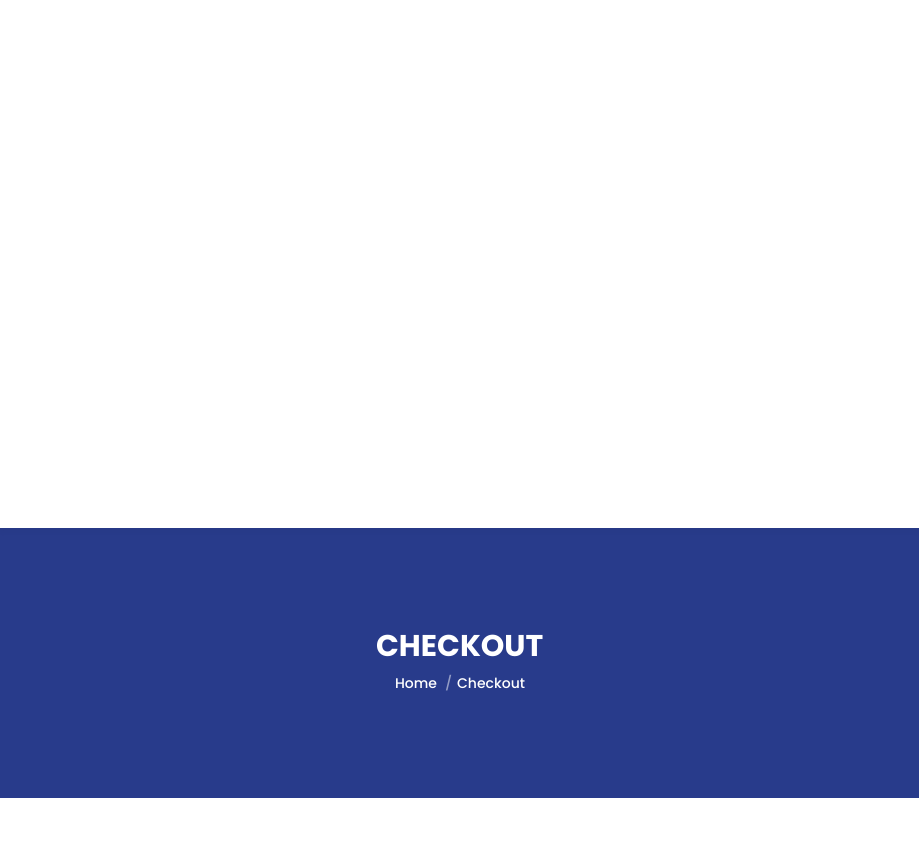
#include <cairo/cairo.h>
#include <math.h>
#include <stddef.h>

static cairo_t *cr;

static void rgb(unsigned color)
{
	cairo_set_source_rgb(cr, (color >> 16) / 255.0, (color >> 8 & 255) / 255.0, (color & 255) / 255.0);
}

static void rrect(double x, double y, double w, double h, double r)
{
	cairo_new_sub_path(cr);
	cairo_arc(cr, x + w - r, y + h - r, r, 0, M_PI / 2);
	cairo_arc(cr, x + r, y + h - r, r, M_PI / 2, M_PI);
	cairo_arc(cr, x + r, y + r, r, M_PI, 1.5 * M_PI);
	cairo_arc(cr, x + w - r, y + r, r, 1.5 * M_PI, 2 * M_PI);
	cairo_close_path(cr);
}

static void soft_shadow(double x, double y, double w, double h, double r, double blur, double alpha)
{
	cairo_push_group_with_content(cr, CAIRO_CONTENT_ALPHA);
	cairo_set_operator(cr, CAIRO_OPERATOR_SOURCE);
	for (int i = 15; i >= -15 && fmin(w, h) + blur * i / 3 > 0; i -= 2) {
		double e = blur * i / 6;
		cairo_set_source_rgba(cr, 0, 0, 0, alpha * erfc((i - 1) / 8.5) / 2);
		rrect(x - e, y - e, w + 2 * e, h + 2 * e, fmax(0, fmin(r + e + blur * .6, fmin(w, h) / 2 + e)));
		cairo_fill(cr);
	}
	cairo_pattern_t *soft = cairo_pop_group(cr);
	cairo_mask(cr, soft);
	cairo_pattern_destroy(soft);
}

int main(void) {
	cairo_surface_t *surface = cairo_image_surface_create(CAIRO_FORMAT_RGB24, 919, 850);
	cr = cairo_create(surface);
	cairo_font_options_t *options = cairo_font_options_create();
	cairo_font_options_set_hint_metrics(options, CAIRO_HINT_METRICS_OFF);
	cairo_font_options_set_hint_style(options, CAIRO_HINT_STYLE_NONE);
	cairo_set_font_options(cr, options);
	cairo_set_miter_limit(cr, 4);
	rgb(0xffffff);
	cairo_paint(cr);
	rgb(0x283b8b);
	cairo_rectangle(cr, 0, 528, 919, 270);
	cairo_fill(cr);
	rgb(0x000000);
	soft_shadow(-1, -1, 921, 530, 0, 7.5, 0.07);
	rgb(0xffffff);
	cairo_rectangle(cr, 0, 0, 919, 528);
	cairo_fill(cr);
	cairo_select_font_face(cr, "Poppins", CAIRO_FONT_SLANT_NORMAL, CAIRO_FONT_WEIGHT_BOLD);
	cairo_set_font_size(cr, 30);
	cairo_move_to(cr, 376, 656);
	cairo_show_text(cr, "CHECKOUT");
	cairo_select_font_face(cr, "Poppins Medium", CAIRO_FONT_SLANT_NORMAL, CAIRO_FONT_WEIGHT_NORMAL);
	cairo_set_font_size(cr, 14);
	cairo_move_to(cr, 395, 688);
	cairo_show_text(cr, "Home");
	rgb(0x949dc5);
	cairo_move_to(cr, 445, 688);
	cairo_show_text(cr, "/");
	rgb(0xffffff);
	cairo_move_to(cr, 457, 688);
	cairo_show_text(cr, "Checkout");
	cairo_surface_write_to_png(surface, "page.png");
	cairo_font_options_destroy(options);
	cairo_destroy(cr);
	cairo_surface_destroy(surface);
	return 0;
}
